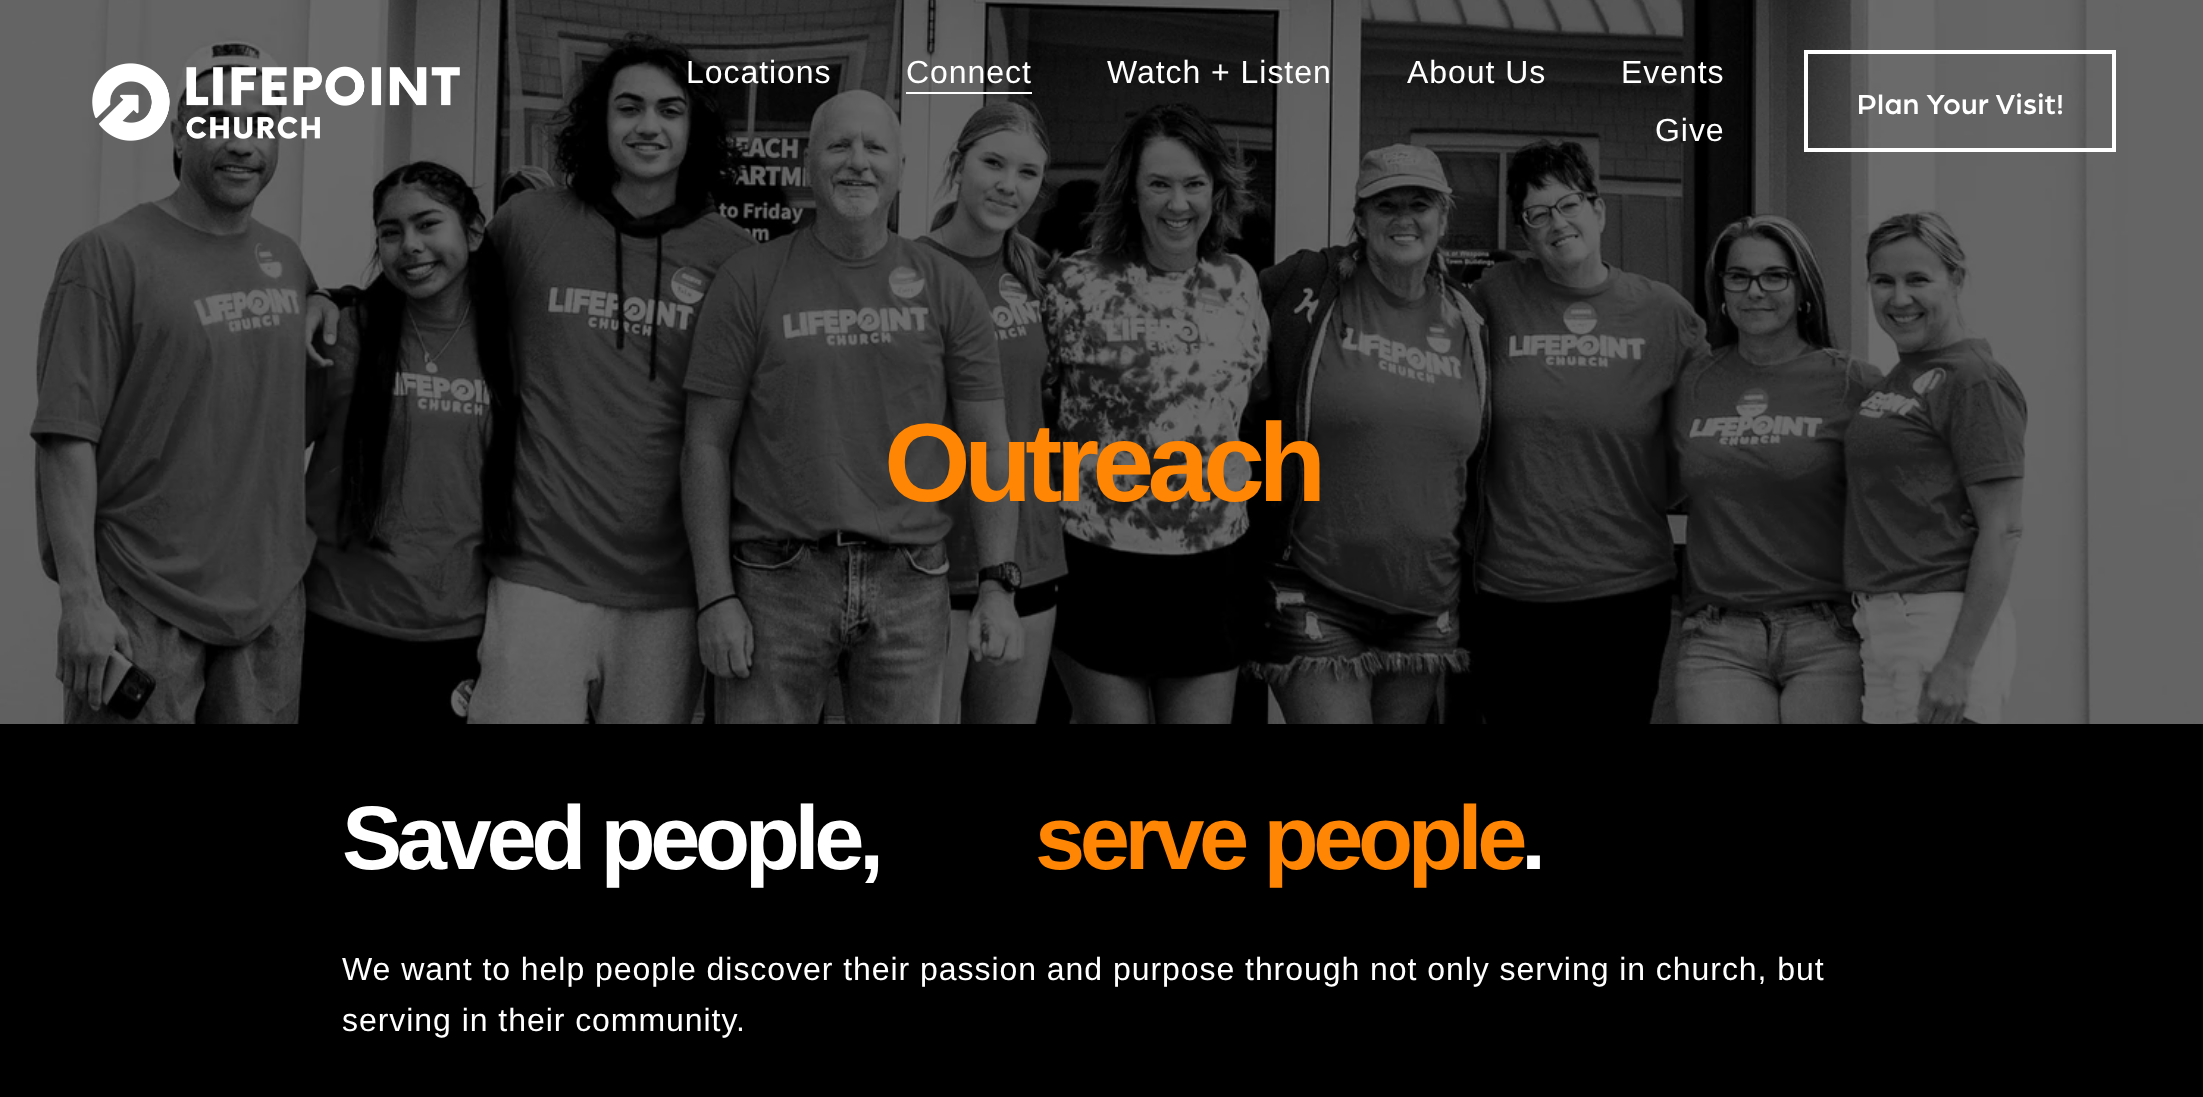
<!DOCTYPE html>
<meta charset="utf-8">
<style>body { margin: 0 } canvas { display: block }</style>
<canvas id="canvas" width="2203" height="1097"></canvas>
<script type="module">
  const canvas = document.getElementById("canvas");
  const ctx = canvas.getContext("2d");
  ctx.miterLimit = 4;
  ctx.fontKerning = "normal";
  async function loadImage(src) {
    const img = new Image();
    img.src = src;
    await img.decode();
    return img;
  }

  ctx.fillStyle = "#ffffff";
  ctx.fillRect(0, 0, 2203, 1097);
  ctx.drawImage(await loadImage("img2.png"), 0, 0, 2203, 724);
  ctx.drawImage(await loadImage("img1.png"), 92, 63, 368, 78);
  ctx.letterSpacing = "0.95px";
  ctx.font = "32px Liberation Sans";
  ctx.fillText("Locations", 686, 83);
  ctx.fillRect(906, 92, 126, 2);
  ctx.fillText("Connect", 906, 83);
  ctx.fillText("Watch + Listen", 1107, 83);
  ctx.fillText("About Us", 1407, 83);
  ctx.fillText("Events", 1621, 83);
  ctx.fillText("Give", 1655, 141);
  ctx.strokeStyle = "#ffffff";
  ctx.lineWidth = 4;
  ctx.strokeRect(1806, 52, 308, 98);
  ctx.letterSpacing = "0.6px";
  ctx.font = "500 29.5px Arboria";
  ctx.fillText("Plan Your Visit!", 1857, 114);
  ctx.letterSpacing = "-6.75px";
  ctx.font = "bold 111.5px Liberation Sans";
  ctx.fillStyle = "#ff8504";
  ctx.fillText("Outreach", 884, 501);
  ctx.fillStyle = "#000000";
  ctx.fillRect(0, 724, 2203, 373);
  ctx.letterSpacing = "-5.4px";
  ctx.font = "bold 90.25px Liberation Sans";
  ctx.fillStyle = "#ffffff";
  ctx.fillText("Saved people,", 342, 869);
  ctx.fillStyle = "#ff8504";
  ctx.fillText("serve people", 1035, 869);
  ctx.fillStyle = "#ffffff";
  ctx.fillText(".", 1521, 869);
  ctx.letterSpacing = "0.95px";
  ctx.font = "32px Liberation Sans";
  ctx.fillText("We want to help people discover their passion and purpose through not only serving in church, but", 342, 980);
  ctx.fillText("serving in their community.", 342, 1031);
</script>
